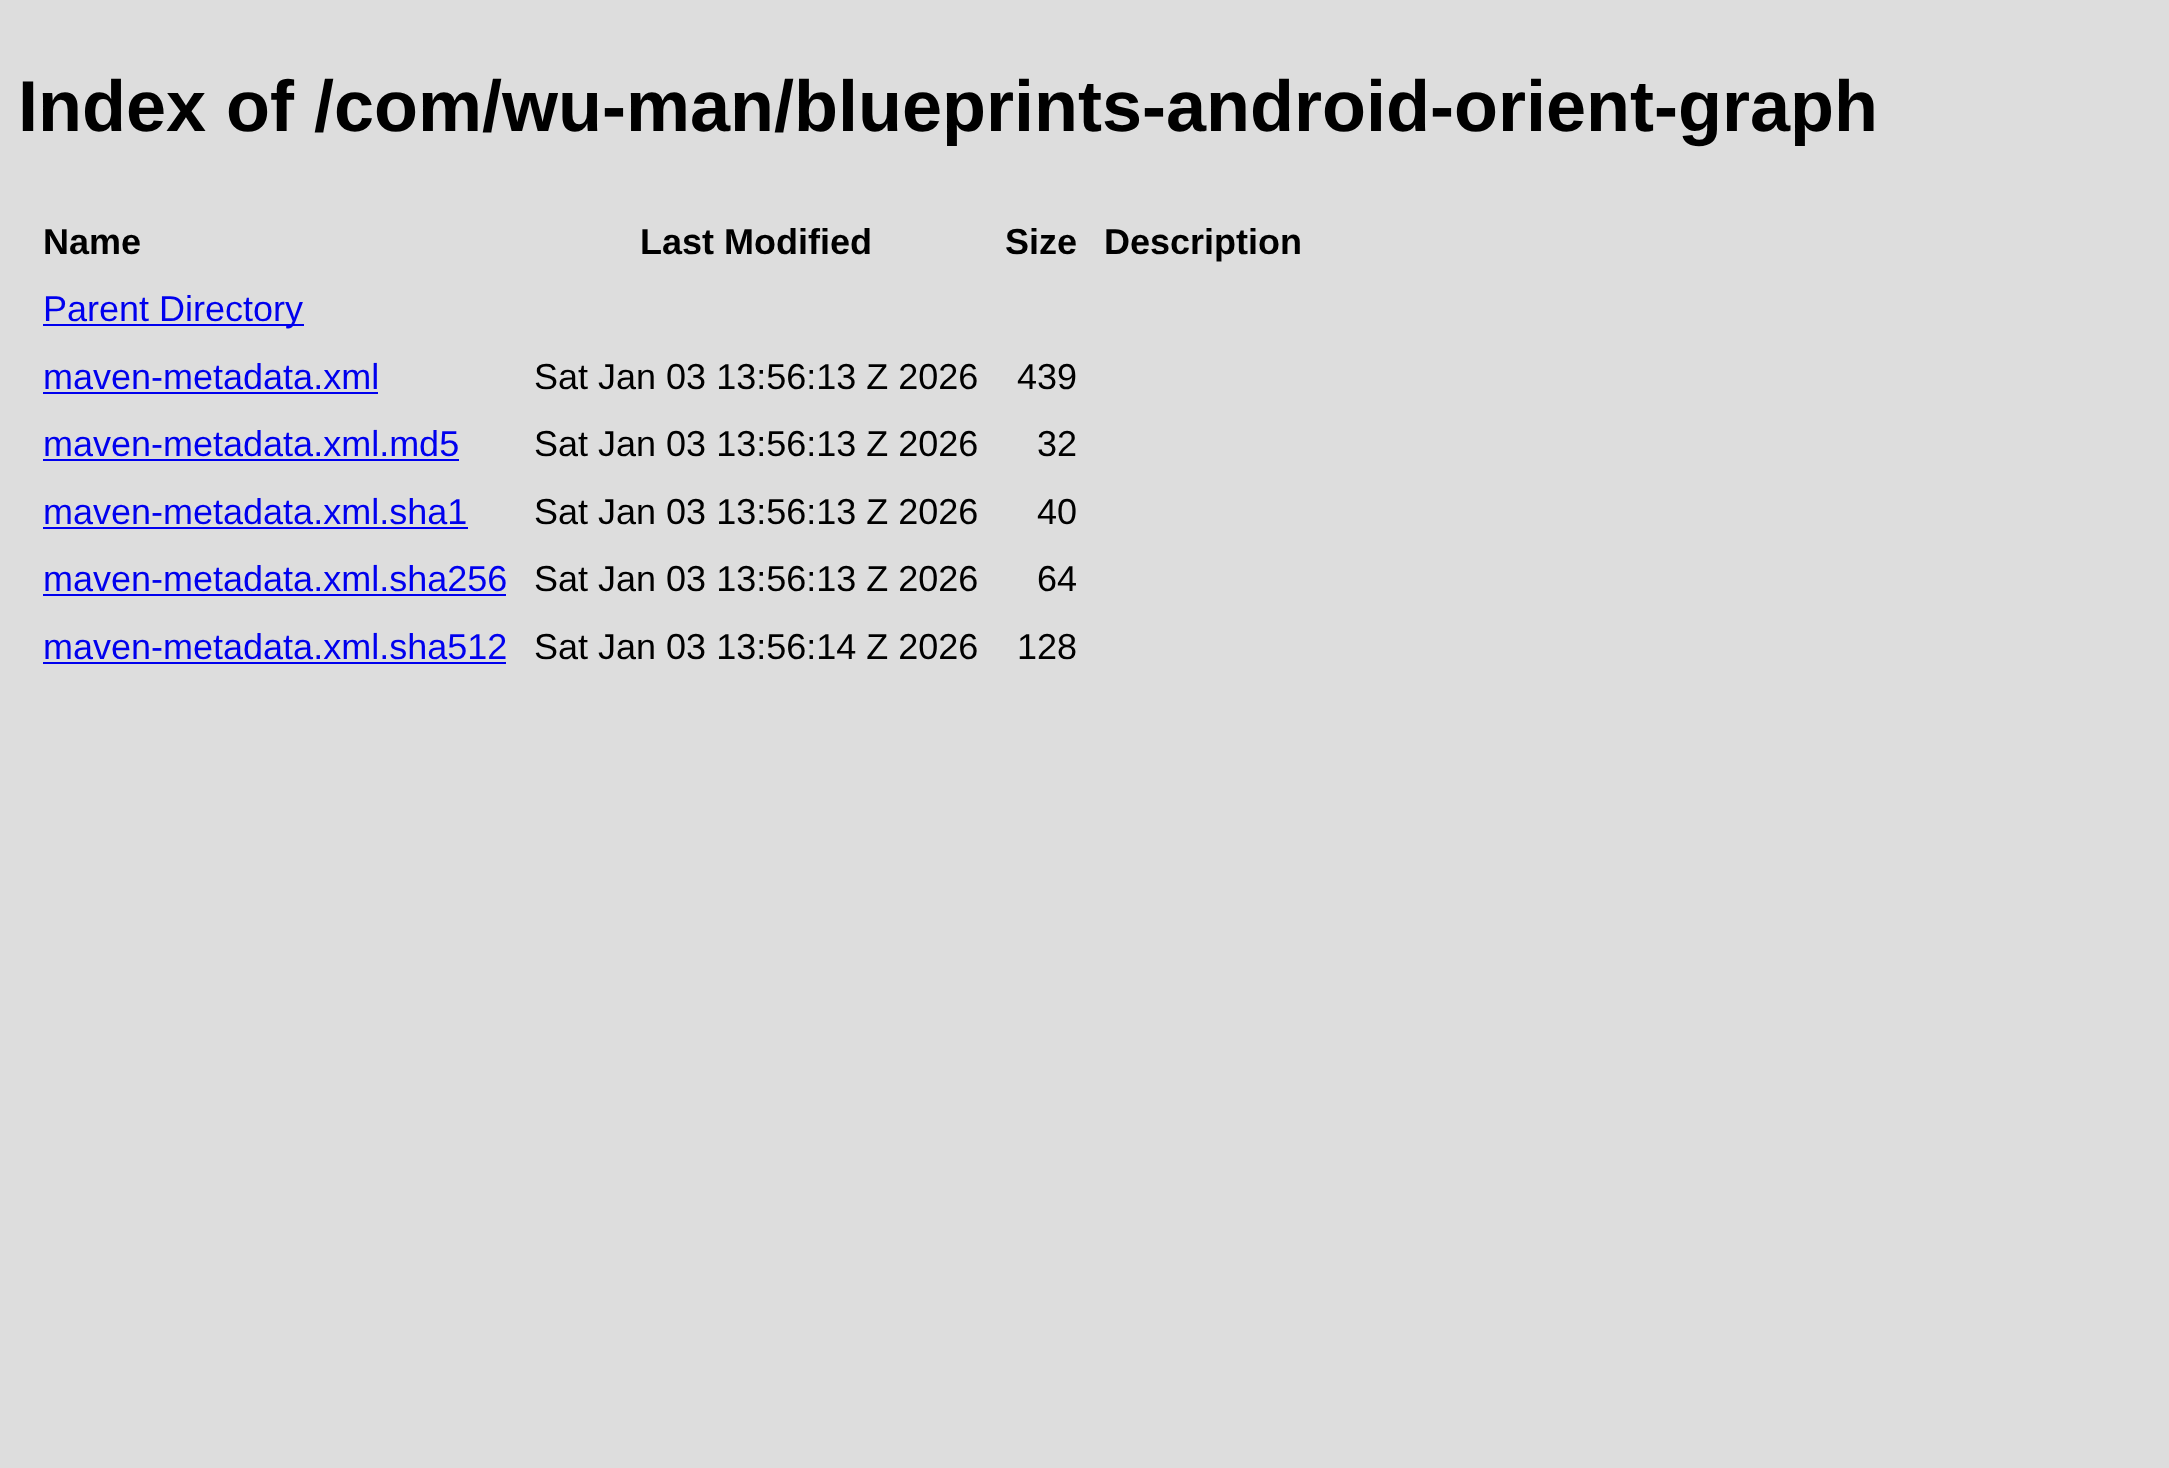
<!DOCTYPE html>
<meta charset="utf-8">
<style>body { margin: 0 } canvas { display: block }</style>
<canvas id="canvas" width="2169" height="1468"></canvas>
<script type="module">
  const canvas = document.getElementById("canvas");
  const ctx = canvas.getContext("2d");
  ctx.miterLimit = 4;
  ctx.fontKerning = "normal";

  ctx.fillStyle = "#dddddd";
  ctx.fillRect(0, 0, 2169, 1468);
  ctx.font = "bold 72px Liberation Sans";
  ctx.fillStyle = "#000000";
  ctx.fillText("Index of /com/wu-man/blueprints-android-orient-graph", 18, 131);
  ctx.font = "bold 36px Liberation Sans";
  ctx.fillText("Name", 43, 254);
  ctx.fillText("Last Modified", 640, 254);
  ctx.fillText("Size", 1005, 254);
  ctx.fillText("Description", 1104, 254);
  ctx.fillStyle = "#0000ee";
  ctx.fillRect(43, 324, 261, 2);
  ctx.font = "36px Liberation Sans";
  ctx.fillText("Parent Directory", 43, 321);
  ctx.fillText("maven-metadata.xml", 43, 389);
  ctx.fillRect(43, 392, 335, 2);
  ctx.fillStyle = "#000000";
  ctx.fillText("Sat Jan 03 13:56:13 Z 2026", 534, 389);
  ctx.fillText("439", 1017, 389);
  ctx.fillStyle = "#0000ee";
  ctx.fillText("maven-metadata.xml.md5", 43, 456);
  ctx.fillRect(43, 459, 416, 2);
  ctx.fillStyle = "#000000";
  ctx.fillText("Sat Jan 03 13:56:13 Z 2026", 534, 456);
  ctx.fillText("32", 1037, 456);
  ctx.fillStyle = "#0000ee";
  ctx.fillText("maven-metadata.xml.sha1", 43, 524);
  ctx.fillRect(43, 527, 425, 2);
  ctx.fillStyle = "#000000";
  ctx.fillText("Sat Jan 03 13:56:13 Z 2026", 534, 524);
  ctx.fillText("40", 1037, 524);
  ctx.fillStyle = "#0000ee";
  ctx.fillText("maven-metadata.xml.sha256", 43, 591);
  ctx.fillRect(43, 594, 463, 2);
  ctx.fillStyle = "#000000";
  ctx.fillText("Sat Jan 03 13:56:13 Z 2026", 534, 591);
  ctx.fillText("64", 1037, 591);
  ctx.fillStyle = "#0000ee";
  ctx.fillText("maven-metadata.xml.sha512", 43, 659);
  ctx.fillRect(43, 662, 463, 2);
  ctx.fillStyle = "#000000";
  ctx.fillText("Sat Jan 03 13:56:14 Z 2026", 534, 659);
  ctx.fillText("128", 1017, 659);
</script>
